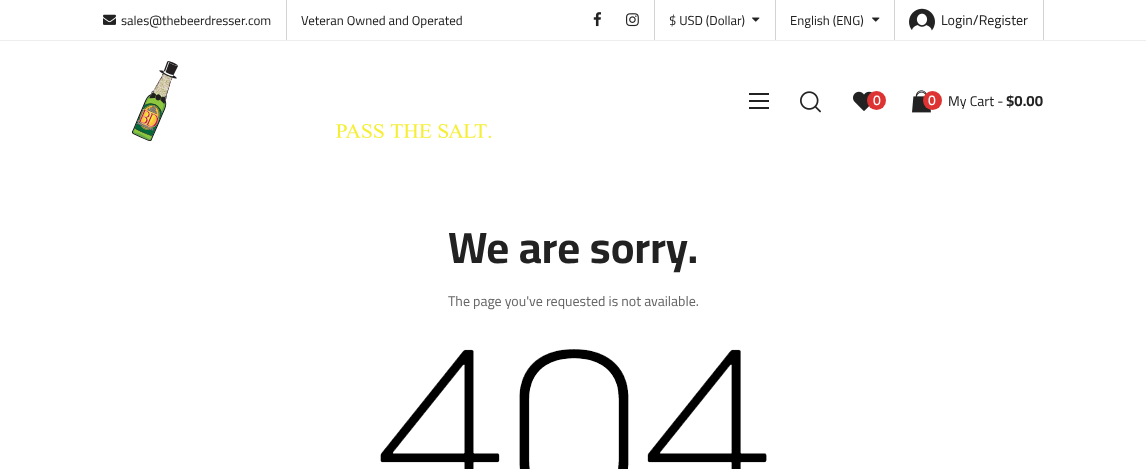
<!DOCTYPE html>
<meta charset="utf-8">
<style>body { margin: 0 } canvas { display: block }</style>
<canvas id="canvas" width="1146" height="469"></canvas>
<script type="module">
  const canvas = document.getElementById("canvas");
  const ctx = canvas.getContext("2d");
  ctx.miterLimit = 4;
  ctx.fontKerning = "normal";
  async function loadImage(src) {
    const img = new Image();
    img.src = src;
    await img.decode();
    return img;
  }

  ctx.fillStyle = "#ffffff";
  ctx.fillRect(0, 0, 1146, 469);
  ctx.fillStyle = "#eeeeee";
  ctx.fillRect(0, 40, 1146, 1);
  ctx.drawImage(await loadImage("img1.png"), 103, 14, 13, 11);
  ctx.font = "13px Cairo";
  ctx.fillStyle = "#222222";
  ctx.fillText("sales@thebeerdresser.com", 121, 25);
  ctx.fillStyle = "#d3d3d3";
  ctx.fillRect(286, 0, 1, 40);
  ctx.fillStyle = "#222222";
  ctx.fillText("Veteran Owned and Operated", 301, 25);
  ctx.drawImage(await loadImage("img2.png"), 593, 12, 9, 15);
  ctx.drawImage(await loadImage("img3.png"), 626, 13, 13, 14);
  ctx.fillStyle = "#d3d3d3";
  ctx.fillRect(654, 0, 1, 40);
  ctx.fillStyle = "#222222";
  ctx.fillText("$ USD (Dollar)", 669, 25);
  ctx.drawImage(await loadImage("img4.png"), 752, 17, 8, 5);
  ctx.fillStyle = "#d3d3d3";
  ctx.fillRect(775, 0, 1, 40);
  ctx.fillStyle = "#222222";
  ctx.fillText("English (ENG)", 790, 25);
  ctx.drawImage(await loadImage("img4.png"), 872, 17, 8, 5);
  ctx.fillStyle = "#d3d3d3";
  ctx.fillRect(894, 0, 1, 40);
  ctx.drawImage(await loadImage("img5.png"), 909, 8, 26, 23);
  ctx.font = "14px Cairo";
  ctx.fillStyle = "#222222";
  ctx.fillText("Login/Register", 941, 25);
  ctx.fillStyle = "#d3d3d3";
  ctx.fillRect(1043, 0, 1, 40);
  ctx.drawImage(await loadImage("img6.png"), 132, 61, 359, 80);
  ctx.fillStyle = "#222222";
  ctx.fillRect(749, 93, 20, 2);
  ctx.fillRect(749, 100, 20, 2);
  ctx.fillRect(749, 107, 20, 2);
  ctx.drawImage(await loadImage("img7.png"), 800, 91, 21, 22);
  ctx.drawImage(await loadImage("img8.png"), 853, 91, 20, 20);
  ctx.fillStyle = "#dd3333";
  ctx.beginPath();
  ctx.arc(876.5, 100.5, 9.5, 0, Math.PI * 2);
  ctx.fill();
  ctx.font = "600 14px Cairo";
  ctx.fillStyle = "#ffffff";
  ctx.fillText("0", 873, 105);
  ctx.drawImage(await loadImage("img9.png"), 912, 90, 19, 23);
  ctx.fillStyle = "#dd3333";
  ctx.beginPath();
  ctx.arc(932.5, 100.5, 9.5, 0, Math.PI * 2);
  ctx.fill();
  ctx.fillStyle = "#ffffff";
  ctx.fillText("0", 928, 105);
  ctx.font = "14px Cairo";
  ctx.fillStyle = "#222222";
  ctx.fillText("My Cart -", 948, 106);
  ctx.font = "bold 15px Cairo";
  ctx.fillText("$0.00", 1006, 106);
  ctx.font = "bold 44px Cairo";
  ctx.fillText("We are sorry.", 448, 263);
  ctx.font = "14px Cairo";
  ctx.fillStyle = "#666666";
  ctx.fillText("The page you've requested is not available.", 448, 306);
  ctx.drawImage(await loadImage("img10.png"), 380, 349, 387, 120);
</script>
